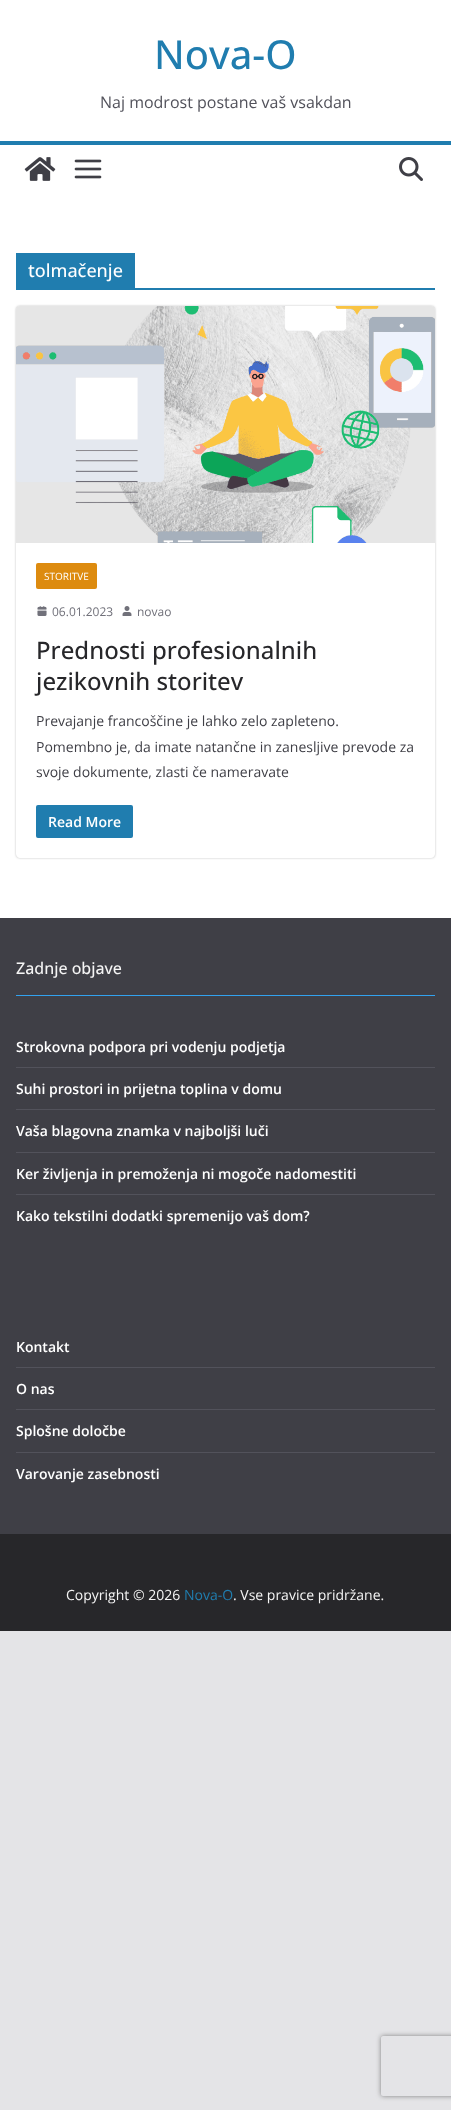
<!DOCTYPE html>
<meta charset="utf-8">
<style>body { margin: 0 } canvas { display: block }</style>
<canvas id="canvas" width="451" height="2110"></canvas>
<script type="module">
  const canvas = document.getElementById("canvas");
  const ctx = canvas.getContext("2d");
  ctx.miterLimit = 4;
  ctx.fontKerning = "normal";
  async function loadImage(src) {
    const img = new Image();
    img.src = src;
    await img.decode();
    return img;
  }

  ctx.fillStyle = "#e4e4e7";
  ctx.fillRect(0, 0, 451, 2110);
  ctx.fillStyle = "#ffffff";
  ctx.fillRect(0, 0, 451, 918);
  ctx.font = "500 40px Open Sans";
  ctx.fillStyle = "#207daf";
  ctx.fillText("Nova-O", 154, 69);
  ctx.font = "16px Open Sans";
  ctx.fillStyle = "#52525b";
  ctx.fillText("Naj modrost postane vaš vsakdan", 100, 108);
  ctx.fillStyle = "#207daf";
  ctx.fillRect(0, 141, 451, 4);
  ctx.drawImage(await loadImage("img1.png"), 24, 157, 32, 24);
  ctx.drawImage(await loadImage("img2.png"), 74, 159, 28, 20);
  ctx.drawImage(await loadImage("img3.png"), 399, 157, 24, 24);
  ctx.fillRect(16, 288, 419, 2);
  ctx.fillRect(16, 253, 119, 35);
  ctx.font = "500 18px Open Sans";
  ctx.fillStyle = "#ffffff";
  ctx.fillText("tolmačenje", 28, 277);
  ctx.save();
  ctx.beginPath();
  ctx.moveTo(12, 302);
  ctx.lineTo(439, 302);
  ctx.lineTo(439, 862);
  ctx.lineTo(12, 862);
  ctx.closePath();
  ctx.moveTo(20, 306);
  ctx.lineTo(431, 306);
  ctx.bezierCurveTo(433, 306, 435, 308, 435, 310);
  ctx.lineTo(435, 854);
  ctx.bezierCurveTo(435, 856, 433, 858, 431, 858);
  ctx.lineTo(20, 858);
  ctx.bezierCurveTo(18, 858, 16, 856, 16, 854);
  ctx.lineTo(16, 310);
  ctx.bezierCurveTo(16, 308, 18, 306, 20, 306);
  ctx.closePath();
  ctx.clip("evenodd");
  ctx.fillStyle = "rgba(0, 0, 0, 0.24)";
  ctx.filter = "blur(1px)";
  ctx.beginPath();
  ctx.roundRect(16, 306, 419, 552, 4);
  ctx.fill();
  ctx.filter = "none";
  ctx.restore();
  ctx.drawImage(await loadImage("img4.png"), 16, 306, 419, 237);
  ctx.fillStyle = "#dd8b0f";
  ctx.beginPath();
  ctx.roundRect(36, 563, 61, 26, 2);
  ctx.fill();
  ctx.font = "10px Open Sans";
  ctx.fillStyle = "#ffffff";
  ctx.fillText("STORITVE", 44, 580);
  ctx.drawImage(await loadImage("img5.png"), 37, 606, 10, 10);
  ctx.font = "12px Open Sans";
  ctx.fillStyle = "#71717a";
  ctx.fillText("06.01.2023", 52, 616);
  ctx.drawImage(await loadImage("img6.png"), 122, 606, 10, 10);
  ctx.fillText("novao", 137, 616);
  ctx.font = "500 24px Open Sans";
  ctx.fillStyle = "#27272a";
  ctx.fillText("Prednosti profesionalnih", 36, 659);
  ctx.fillText("jezikovnih storitev", 36, 690);
  ctx.font = "14px Open Sans";
  ctx.fillStyle = "#3f3f46";
  ctx.fillText("Prevajanje francoščine je lahko zelo zapleteno.", 36, 726);
  ctx.fillText("Pomembno je, da imate natančne in zanesljive prevode za", 36, 752);
  ctx.fillText("svoje dokumente, zlasti če nameravate", 36, 777);
  ctx.fillStyle = "#207daf";
  ctx.beginPath();
  ctx.roundRect(36, 805, 97, 33, 2);
  ctx.fill();
  ctx.font = "600 14px Open Sans";
  ctx.fillStyle = "#ffffff";
  ctx.fillText("Read More", 48, 827);
  ctx.fillStyle = "#3f3f46";
  ctx.fillRect(0, 918, 451, 616);
  ctx.font = "500 16px Open Sans";
  ctx.fillStyle = "#f5f5f5";
  ctx.fillText("Zadnje objave", 16, 974);
  ctx.fillStyle = "#32a2ef";
  ctx.fillRect(16, 995, 419, 1);
  ctx.fillStyle = "#52525b";
  ctx.fillRect(16, 1067, 419, 1);
  ctx.font = "600 14px Open Sans";
  ctx.fillStyle = "#ffffff";
  ctx.fillText("Strokovna podpora pri vodenju podjetja", 16, 1052);
  ctx.fillStyle = "#52525b";
  ctx.fillRect(16, 1109, 419, 1);
  ctx.fillStyle = "#ffffff";
  ctx.fillText("Suhi prostori in prijetna toplina v domu", 16, 1094);
  ctx.fillStyle = "#52525b";
  ctx.fillRect(16, 1152, 419, 1);
  ctx.fillStyle = "#ffffff";
  ctx.fillText("Vaša blagovna znamka v najboljši luči", 16, 1136);
  ctx.fillStyle = "#52525b";
  ctx.fillRect(16, 1194, 419, 1);
  ctx.fillStyle = "#ffffff";
  ctx.fillText("Ker življenja in premoženja ni mogoče nadomestiti", 16, 1179);
  ctx.fillText("Kako tekstilni dodatki spremenijo vaš dom?", 16, 1221);
  ctx.fillStyle = "#52525b";
  ctx.fillRect(16, 1367, 419, 1);
  ctx.fillStyle = "#ffffff";
  ctx.fillText("Kontakt", 16, 1352);
  ctx.fillStyle = "#52525b";
  ctx.fillRect(16, 1409, 419, 1);
  ctx.fillStyle = "#ffffff";
  ctx.fillText("O nas", 16, 1394);
  ctx.fillStyle = "#52525b";
  ctx.fillRect(16, 1452, 419, 1);
  ctx.fillStyle = "#ffffff";
  ctx.fillText("Splošne določbe", 16, 1436);
  ctx.fillText("Varovanje zasebnosti", 16, 1479);
  ctx.fillStyle = "#27272a";
  ctx.fillRect(0, 1534, 451, 97);
  ctx.font = "14px Open Sans";
  ctx.fillStyle = "#f5f5f5";
  ctx.fillText("Copyright © 2026", 66, 1600);
  ctx.fillStyle = "#207daf";
  ctx.fillText("Nova-O", 184, 1600);
  ctx.fillStyle = "#f5f5f5";
  ctx.fillText(". Vse pravice pridržane.", 233, 1600);
  ctx.save();
  ctx.beginPath();
  ctx.moveTo(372, 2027);
  ctx.lineTo(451, 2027);
  ctx.lineTo(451, 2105);
  ctx.lineTo(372, 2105);
  ctx.closePath();
  ctx.moveTo(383, 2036);
  ctx.lineTo(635, 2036);
  ctx.bezierCurveTo(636, 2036, 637, 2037, 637, 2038);
  ctx.lineTo(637, 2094);
  ctx.bezierCurveTo(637, 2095, 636, 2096, 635, 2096);
  ctx.lineTo(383, 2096);
  ctx.bezierCurveTo(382, 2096, 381, 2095, 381, 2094);
  ctx.lineTo(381, 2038);
  ctx.bezierCurveTo(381, 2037, 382, 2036, 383, 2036);
  ctx.closePath();
  ctx.clip("evenodd");
  ctx.fillStyle = "#808080";
  ctx.filter = "blur(2.5px)";
  ctx.beginPath();
  ctx.roundRect(381, 2036, 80, 60, 2);
  ctx.fill();
  ctx.filter = "none";
  ctx.restore();
</script>
